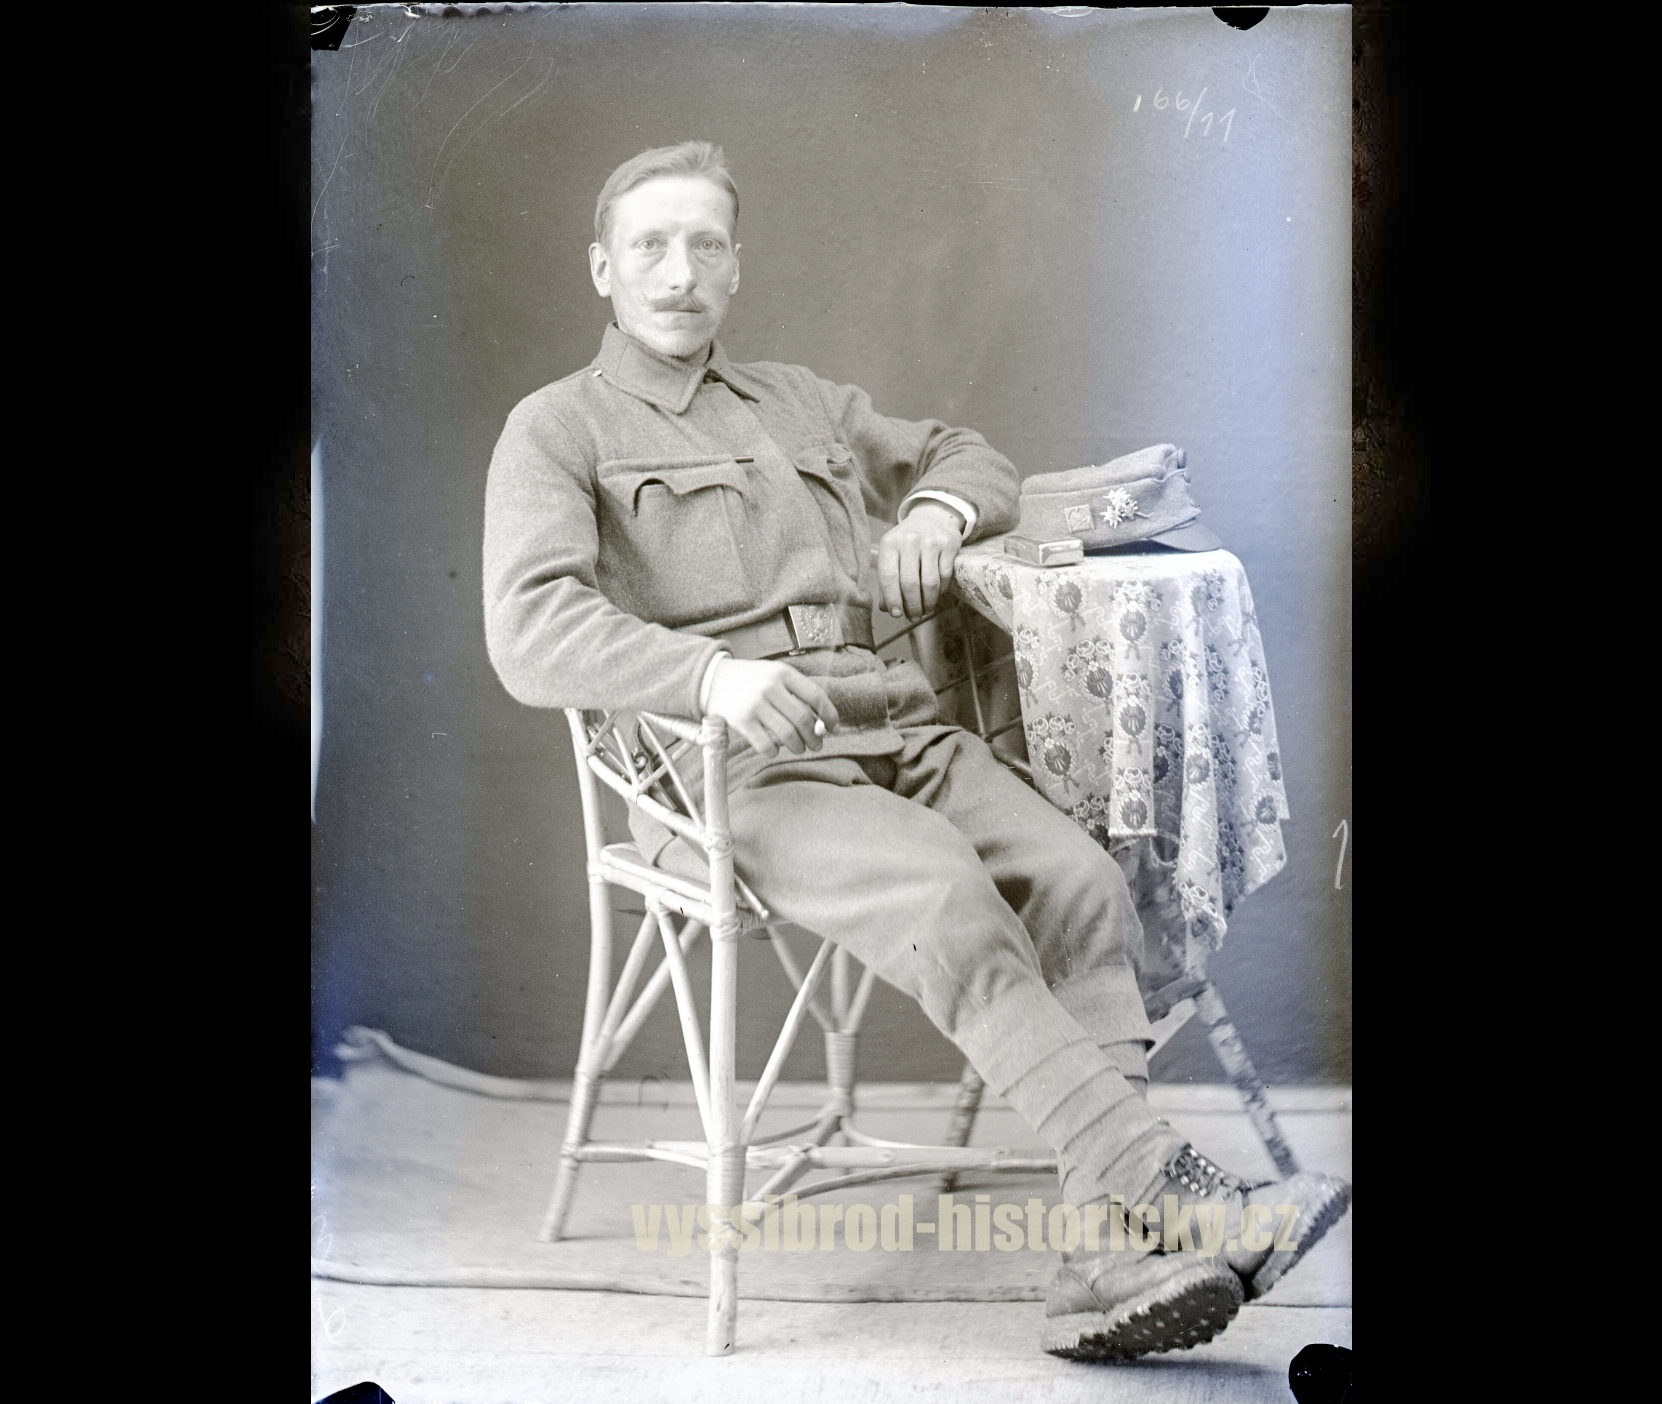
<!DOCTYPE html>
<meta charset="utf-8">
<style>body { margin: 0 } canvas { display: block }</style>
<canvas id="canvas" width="1662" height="1404"></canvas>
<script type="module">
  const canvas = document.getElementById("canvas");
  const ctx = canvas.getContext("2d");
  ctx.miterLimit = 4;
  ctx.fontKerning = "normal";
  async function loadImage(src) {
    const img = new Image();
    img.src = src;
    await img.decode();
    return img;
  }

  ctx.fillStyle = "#000000";
  ctx.fillRect(0, 0, 1662, 1404);
  ctx.drawImage(await loadImage("img1.png"), 252, 0, 1179, 779);
  ctx.drawImage(await loadImage("img2.png"), 311, 0, 1041, 1404);
</script>
